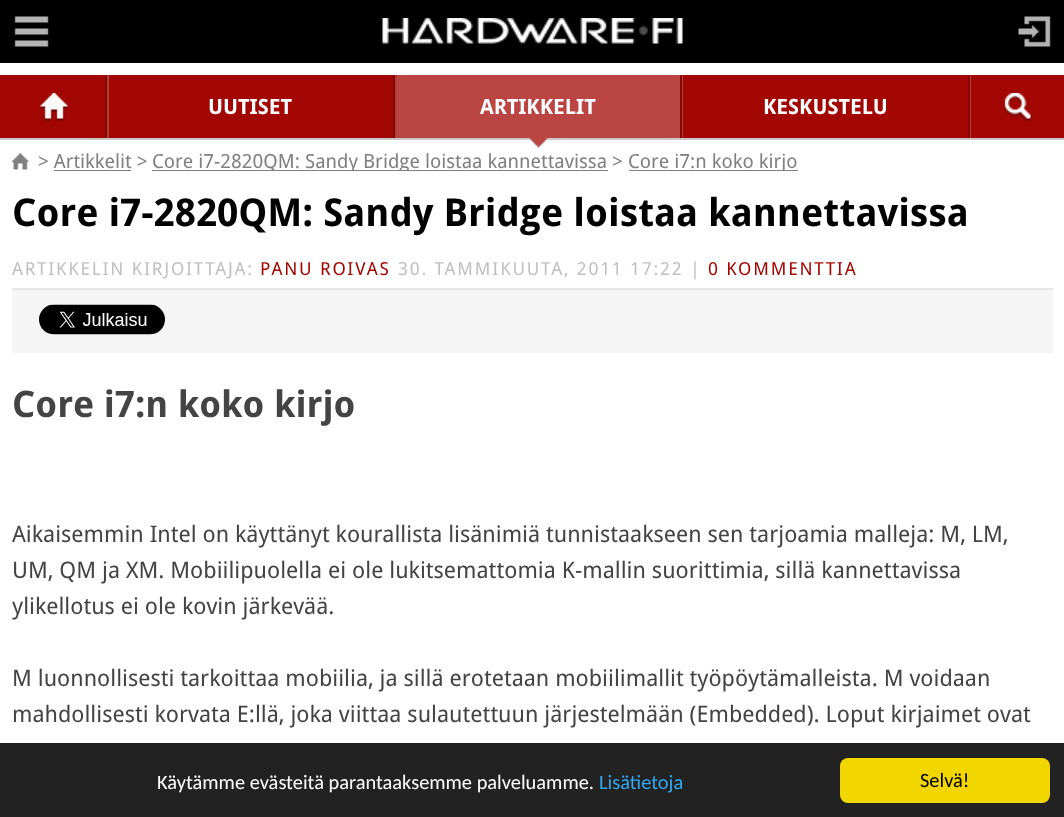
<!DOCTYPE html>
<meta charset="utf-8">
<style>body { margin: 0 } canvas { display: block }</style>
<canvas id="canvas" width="1064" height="817"></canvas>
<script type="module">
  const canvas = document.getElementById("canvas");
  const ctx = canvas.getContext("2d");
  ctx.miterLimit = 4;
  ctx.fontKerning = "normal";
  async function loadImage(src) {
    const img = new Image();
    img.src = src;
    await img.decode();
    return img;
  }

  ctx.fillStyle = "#ffffff";
  ctx.fillRect(0, 0, 1064, 817);
  ctx.fillStyle = "#000000";
  ctx.fillRect(0, 0, 1064, 63);
  ctx.drawImage(await loadImage("img1.png"), 14, 16, 35, 31);
  ctx.drawImage(await loadImage("img2.png"), 1018, 16, 33, 31);
  ctx.drawImage(await loadImage("img3.png"), 382, 18, 301, 26);
  ctx.fillStyle = "#a30703";
  ctx.fillRect(0, 75, 1064, 63);
  ctx.fillStyle = "#c9c6c6";
  ctx.fillRect(0, 138, 1064, 2);
  ctx.drawImage(await loadImage("img4.png"), 39, 93, 30, 29);
  ctx.fillStyle = "#800704";
  ctx.fillRect(105, 75, 2, 63);
  ctx.fillRect(393, 75, 2, 63);
  ctx.fillStyle = "#b63c39";
  ctx.fillRect(107, 75, 2, 63);
  ctx.font = "bold 21px Droid Sans";
  ctx.fillStyle = "#ffffff";
  ctx.fillText("UUTISET", 208, 114);
  ctx.fillStyle = "#ba4542";
  ctx.fillRect(397, 75, 283, 63);
  ctx.fillStyle = "#800704";
  ctx.fillRect(680, 75, 2, 63);
  ctx.fillStyle = "#b63c39";
  ctx.fillRect(395, 75, 2, 63);
  ctx.fillStyle = "#ffffff";
  ctx.fillText("ARTIKKELIT", 480, 114);
  ctx.fillStyle = "#c9c6c6";
  ctx.beginPath();
  ctx.moveTo(529.5, 139.5);
  ctx.lineTo(547.5, 139.5);
  ctx.lineTo(538.5, 148.5);
  ctx.closePath();
  ctx.fill();
  ctx.fillStyle = "#ba4542";
  ctx.beginPath();
  ctx.moveTo(529.5, 138);
  ctx.lineTo(547.5, 138);
  ctx.lineTo(538.5, 147);
  ctx.closePath();
  ctx.fill();
  ctx.fillStyle = "#800704";
  ctx.fillRect(968, 75, 2, 63);
  ctx.fillStyle = "#b63c39";
  ctx.fillRect(682, 75, 1, 63);
  ctx.fillStyle = "#ffffff";
  ctx.fillText("KESKUSTELU", 763, 114);
  ctx.drawImage(await loadImage("img5.png"), 1003, 93, 29, 29);
  ctx.fillStyle = "#b63c39";
  ctx.fillRect(970, 75, 1, 63);
  ctx.drawImage(await loadImage("img6.png"), 12, 153, 17, 17);
  ctx.font = "19.5px Droid Sans";
  ctx.fillStyle = "#808080";
  ctx.fillText("> Artikkelit >", 38, 168);
  ctx.fillRect(152, 170, 456, 1);
  ctx.save();
  ctx.beginPath();
  ctx.rect(12, 152, 1041, 19);
  ctx.clip();
  ctx.fillText("Core i7-2820QM: Sandy Bridge loistaa kannettavissa", 152, 168);
  ctx.restore();
  ctx.fillText(">", 612, 168);
  ctx.fillRect(629, 170, 169, 1);
  ctx.save();
  ctx.beginPath();
  ctx.rect(12, 152, 1041, 19);
  ctx.clip();
  ctx.fillText("Core i7:n koko kirjo", 628, 168);
  ctx.restore();
  ctx.fillRect(54, 170, 77, 1);
  ctx.font = "bold 38.4px Droid Sans";
  ctx.fillStyle = "#000000";
  ctx.fillText("Core i7-2820QM: Sandy Bridge loistaa kannettavissa", 12, 226);
  ctx.fillStyle = "#e6e6e6";
  ctx.fillRect(12, 288, 1041, 2);
  ctx.letterSpacing = "1.8px";
  ctx.font = "18px Droid Sans";
  ctx.fillStyle = "#c0c0c0";
  ctx.fillText("ARTIKKELIN KIRJOITTAJA:", 12, 275);
  ctx.fillStyle = "#a30703";
  ctx.fillText("PANU ROIVAS", 260, 275);
  ctx.fillStyle = "#c0c0c0";
  ctx.fillText("30. TAMMIKUUTA, 2011 17:22 |", 398, 275);
  ctx.fillStyle = "#a30703";
  ctx.fillText("0 KOMMENTTIA", 708, 275);
  ctx.fillStyle = "#f5f5f5";
  ctx.fillRect(12, 290, 1041, 63);
  ctx.drawImage(await loadImage("img7.png"), 39, 304, 126, 31);
  ctx.letterSpacing = "0px";
  ctx.font = "bold 36.5px Droid Sans";
  ctx.fillStyle = "#444444";
  ctx.fillText("Core i7:n koko kirjo", 12, 417);
  ctx.font = "22.8px Droid Sans";
  ctx.fillText("Aikaisemmin Intel on käyttänyt kourallista lisänimiä tunnistaakseen sen tarjoamia malleja: M, LM,", 12, 542);
  ctx.fillText("UM, QM ja XM. Mobiilipuolella ei ole lukitsemattomia K-mallin suorittimia, sillä kannettavissa", 12, 578);
  ctx.fillText("ylikellotus ei ole kovin järkevää.", 12, 614);
  ctx.fillText("M luonnollisesti tarkoittaa mobiilia, ja sillä erotetaan mobiilimallit työpöytämalleista. M voidaan", 12, 686);
  ctx.fillText("mahdollisesti korvata E:llä, joka viittaa sulautettuun järjestelmään (Embedded). Loput kirjaimet ovat", 12, 722);
  ctx.fillStyle = "#222222";
  ctx.fillRect(0, 743, 1064, 74);
  ctx.font = "20.4px Carlito";
  ctx.fillStyle = "#ffffff";
  ctx.fillText("Käytämme evästeitä parantaaksemme palveluamme.", 157, 789);
  ctx.fillStyle = "#31a8f0";
  ctx.fillText("Lisätietoja", 599, 789);
  ctx.fillStyle = "#f1d600";
  ctx.beginPath();
  ctx.roundRect(840, 758, 210, 45, 8);
  ctx.fill();
  ctx.fillStyle = "#000000";
  ctx.fillText("Selvä!", 920, 787);
</script>
